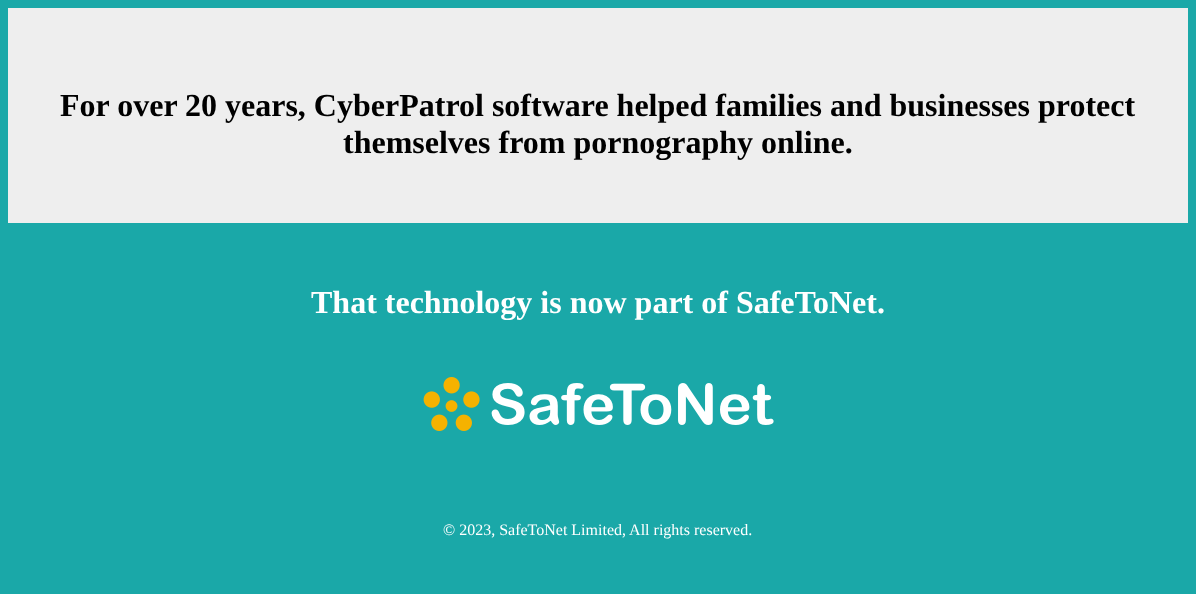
<!DOCTYPE html>
<meta charset="utf-8">
<style>body { margin: 0 } canvas { display: block }</style>
<canvas id="canvas" width="1196" height="594"></canvas>
<script type="module">
  const canvas = document.getElementById("canvas");
  const ctx = canvas.getContext("2d");
  ctx.miterLimit = 4;
  ctx.fontKerning = "normal";
  async function loadImage(src) {
    const img = new Image();
    img.src = src;
    await img.decode();
    return img;
  }

  ctx.fillStyle = "#1aa8a8";
  ctx.fillRect(0, 0, 1196, 594);
  ctx.fillStyle = "#eeeeee";
  ctx.fillRect(8, 8, 1180, 215);
  ctx.font = "bold 32px Liberation Serif";
  ctx.fillStyle = "#000000";
  ctx.fillText("For over 20 years, CyberPatrol software helped families and businesses protect", 60, 116);
  ctx.fillText("themselves from pornography online.", 343, 153);
  ctx.fillStyle = "#ffffff";
  ctx.fillText("That technology is now part of SafeToNet.", 311, 313);
  ctx.drawImage(await loadImage("img1.png"), 423, 377, 351, 54);
  ctx.font = "16px Liberation Serif";
  ctx.fillText("© 2023, SafeToNet Limited, All rights reserved.", 443, 535);
</script>
